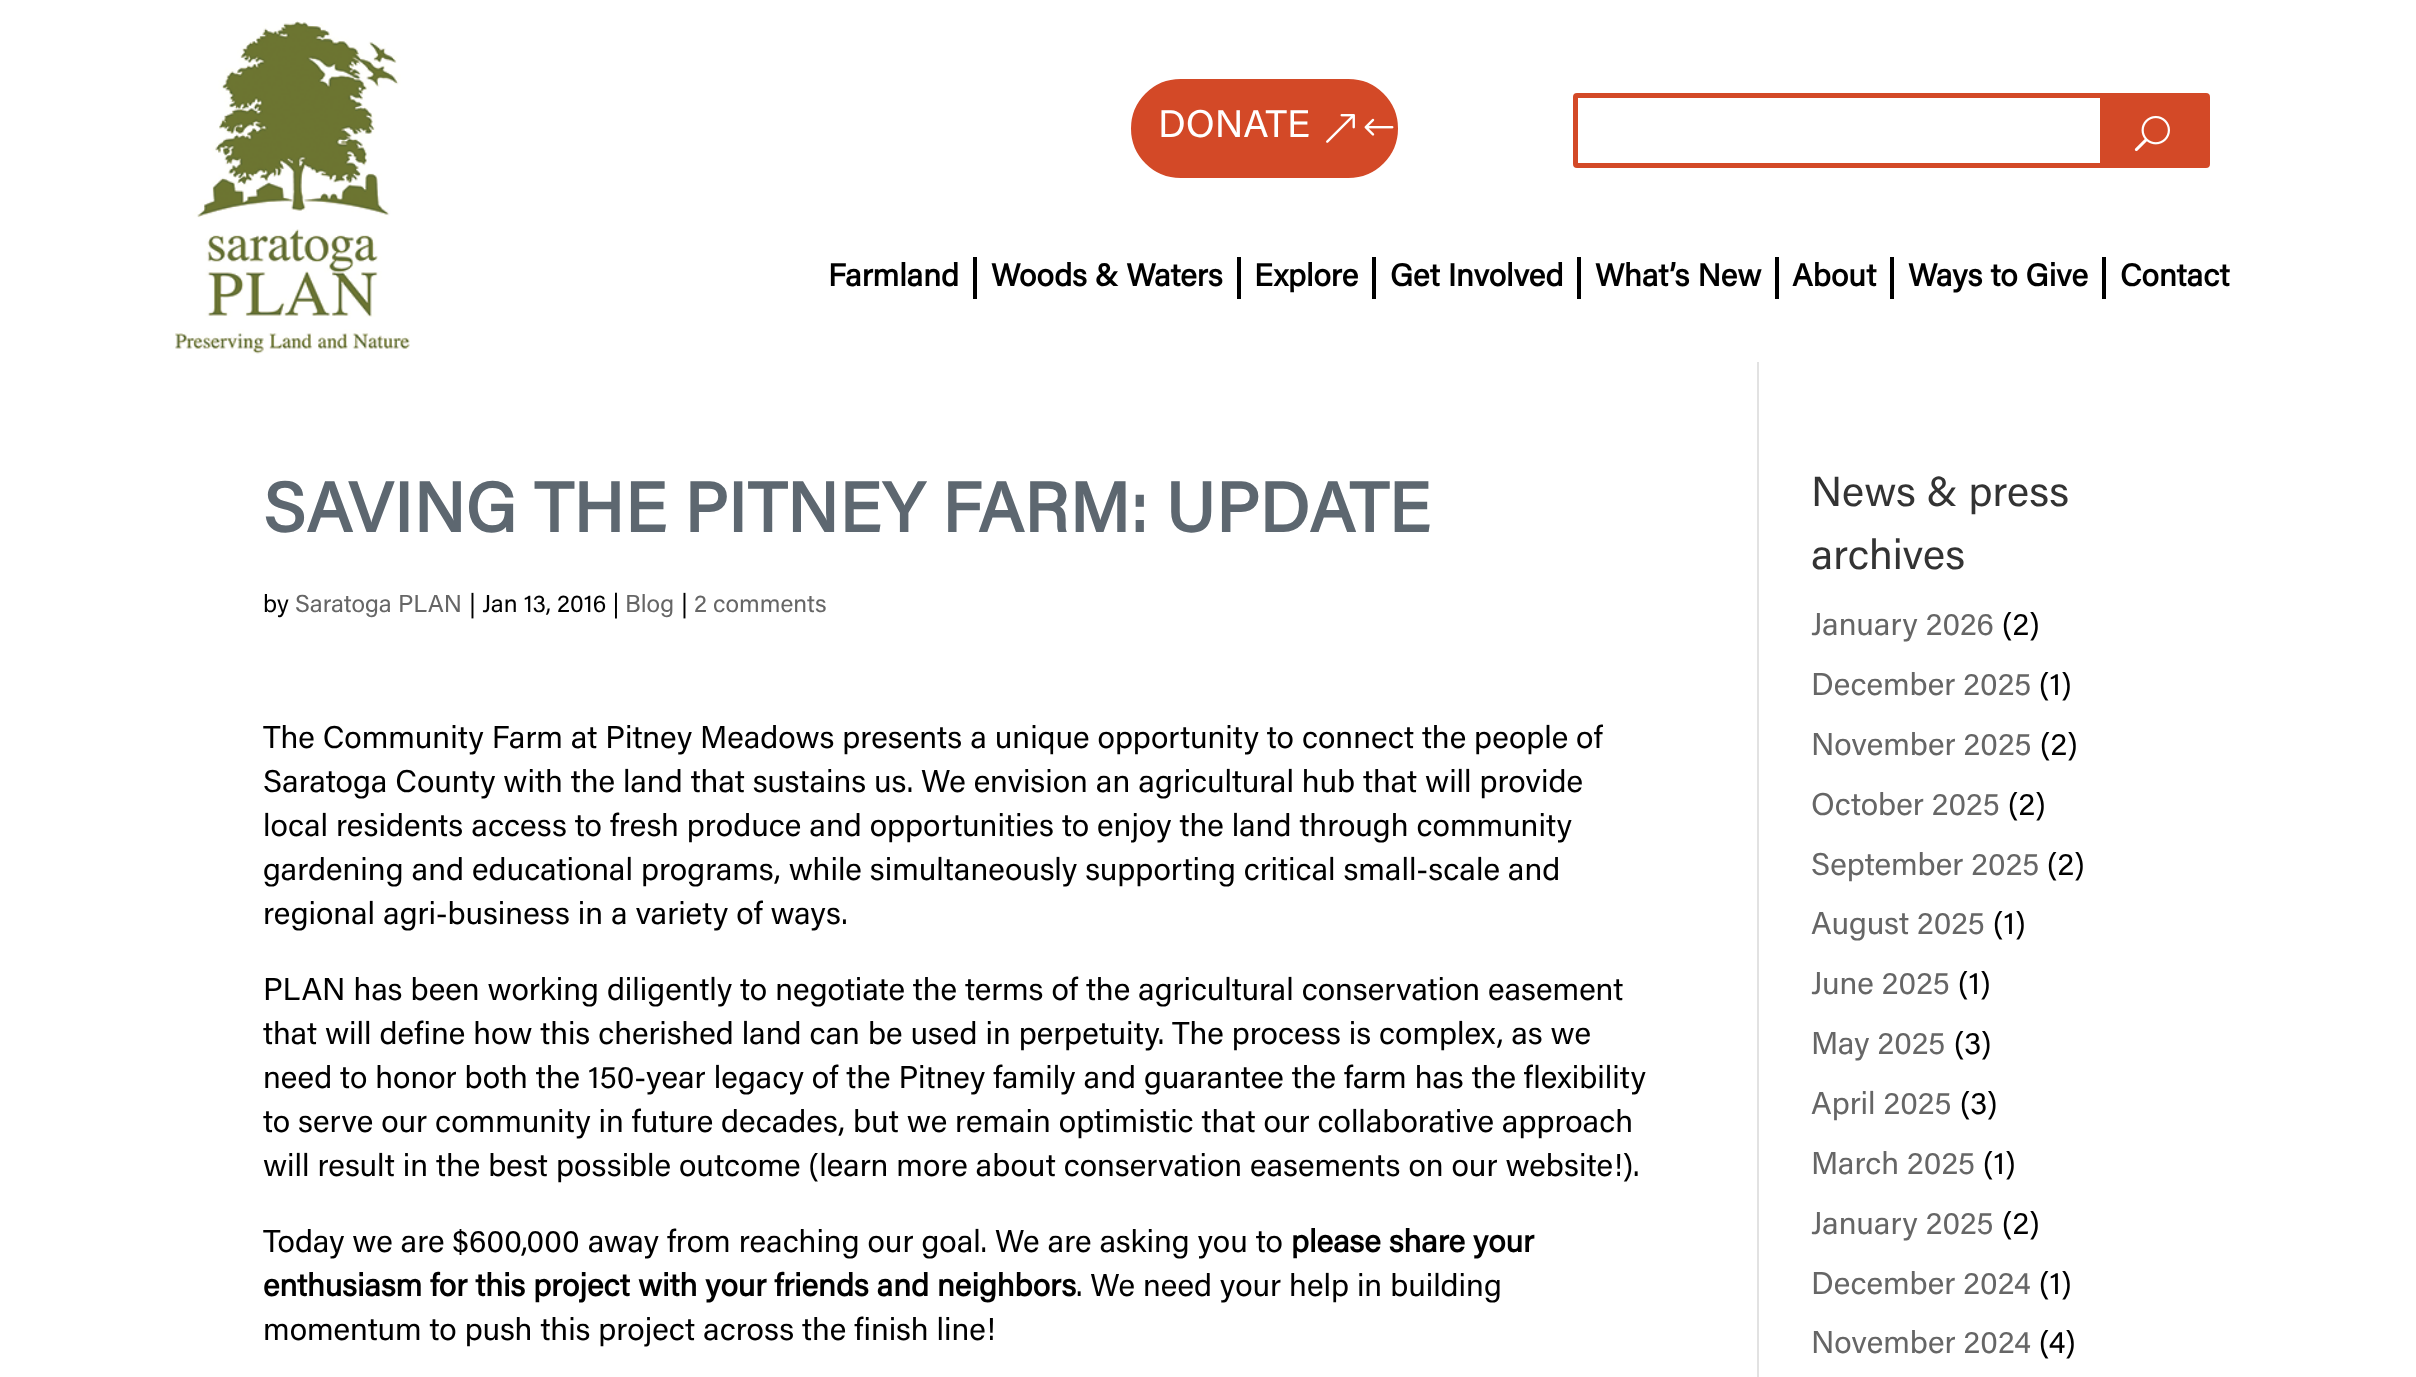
<!DOCTYPE html>
<meta charset="utf-8">
<style>body { margin: 0 } canvas { display: block }</style>
<canvas id="canvas" width="2416" height="1377"></canvas>
<script type="module">
  const canvas = document.getElementById("canvas");
  const ctx = canvas.getContext("2d");
  ctx.miterLimit = 4;
  ctx.fontKerning = "normal";
  async function loadImage(src) {
    const img = new Image();
    img.src = src;
    await img.decode();
    return img;
  }

  ctx.fillStyle = "#ffffff";
  ctx.fillRect(0, 0, 2416, 1377);
  ctx.drawImage(await loadImage("img1.png"), 175, 21, 235, 333);
  ctx.fillStyle = "#d34927";
  ctx.beginPath();
  ctx.roundRect(1126.5, 74.5, 276, 108, 54);
  ctx.fill();
  ctx.strokeStyle = "#ffffff";
  ctx.lineWidth = 9;
  ctx.stroke();
  ctx.font = "38.5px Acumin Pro";
  ctx.fillStyle = "#ffffff";
  ctx.fillText("DONATE", 1158, 137);
  ctx.drawImage(await loadImage("img2.png"), 1326, 114, 81, 29);
  ctx.beginPath();
  ctx.roundRect(1575.5, 95.5, 632, 70, 1.5);
  ctx.strokeStyle = "#d34927";
  ctx.lineWidth = 5;
  ctx.stroke();
  ctx.fillStyle = "#d34927";
  ctx.fillRect(2100, 98, 105, 65);
  ctx.drawImage(await loadImage("img3.png"), 2134, 115, 36, 37);
  ctx.fillStyle = "#000000";
  ctx.fillRect(973, 257, 4, 42);
  ctx.font = "bold 31.5px Acumin Pro";
  ctx.fillText("Farmland", 828, 286);
  ctx.fillRect(1237, 257, 4, 42);
  ctx.fillText("Woods & Waters", 991, 286);
  ctx.fillRect(1372, 257, 4, 42);
  ctx.fillText("Explore", 1254, 286);
  ctx.fillRect(1577, 257, 4, 42);
  ctx.fillText("Get Involved", 1390, 286);
  ctx.fillRect(1775, 257, 4, 42);
  ctx.fillText("What’s New", 1595, 286);
  ctx.fillRect(1890, 257, 4, 42);
  ctx.fillText("About", 1792, 286);
  ctx.fillRect(2102, 257, 4, 42);
  ctx.fillText("Ways to Give", 1908, 286);
  ctx.fillText("Contact", 2120, 286);
  ctx.fillStyle = "#e2e2e2";
  ctx.fillRect(1757, 362, 2, 1015);
  ctx.font = "bold 70px Acumin Pro";
  ctx.fillStyle = "#5d6770";
  ctx.fillText("SAVING THE PITNEY FARM: UPDATE", 263, 532);
  ctx.font = "24.5px Acumin Pro";
  ctx.fillStyle = "#000000";
  ctx.fillText("by", 263, 612);
  ctx.fillStyle = "#666666";
  ctx.fillText("Saratoga PLAN", 295, 612);
  ctx.fillStyle = "#000000";
  ctx.fillText("| Jan 13, 2016 |", 469, 612);
  ctx.fillStyle = "#666666";
  ctx.fillText("Blog", 625, 612);
  ctx.fillStyle = "#000000";
  ctx.fillText("|", 681, 612);
  ctx.fillStyle = "#666666";
  ctx.fillText("2 comments", 694, 612);
  ctx.font = "31.5px Acumin Pro";
  ctx.fillStyle = "#000000";
  ctx.fillText("The Community Farm at Pitney Meadows presents a unique opportunity to connect the people of", 263, 748);
  ctx.fillText("Saratoga County with the land that sustains us. We envision an agricultural hub that will provide", 263, 792);
  ctx.fillText("local residents access to fresh produce and opportunities to enjoy the land through community", 263, 836);
  ctx.fillText("gardening and educational programs, while simultaneously supporting critical small-scale and", 263, 880);
  ctx.fillText("regional agri-business in a variety of ways.", 263, 924);
  ctx.fillText("PLAN has been working diligently to negotiate the terms of the agricultural conservation easement", 263, 1000);
  ctx.fillText("that will define how this cherished land can be used in perpetuity. The process is complex, as we", 263, 1044);
  ctx.fillText("need to honor both the 150-year legacy of the Pitney family and guarantee the farm has the flexibility", 263, 1088);
  ctx.fillText("to serve our community in future decades, but we remain optimistic that our collaborative approach", 263, 1132);
  ctx.fillText("will result in the best possible outcome (learn more about conservation easements on our website!).", 263, 1176);
  ctx.fillText("Today we are $600,000 away from reaching our goal. We are asking you to", 263, 1252);
  ctx.font = "bold 31.5px Acumin Pro";
  ctx.fillText("please share your", 1291, 1252);
  ctx.fillText("enthusiasm for this project with your friends and neighbors", 263, 1296);
  ctx.font = "31.5px Acumin Pro";
  ctx.fillText(". We need your help in building", 1076, 1296);
  ctx.fillText("momentum to push this project across the finish line!", 263, 1340);
  ctx.font = "42px Acumin Pro";
  ctx.fillStyle = "#333333";
  ctx.fillText("News & press", 1811, 506);
  ctx.fillText("archives", 1811, 569);
  ctx.font = "31.5px Acumin Pro";
  ctx.fillStyle = "#666666";
  ctx.fillText("January 2026", 1811, 635);
  ctx.fillStyle = "#000000";
  ctx.fillText("(2)", 2002, 635);
  ctx.fillStyle = "#666666";
  ctx.fillText("December 2025", 1811, 695);
  ctx.fillStyle = "#000000";
  ctx.fillText("(1)", 2039, 695);
  ctx.fillStyle = "#666666";
  ctx.fillText("November 2025", 1811, 755);
  ctx.fillStyle = "#000000";
  ctx.fillText("(2)", 2040, 755);
  ctx.fillStyle = "#666666";
  ctx.fillText("October 2025", 1811, 815);
  ctx.fillStyle = "#000000";
  ctx.fillText("(2)", 2008, 815);
  ctx.fillStyle = "#666666";
  ctx.fillText("September 2025", 1811, 875);
  ctx.fillStyle = "#000000";
  ctx.fillText("(2)", 2047, 875);
  ctx.fillStyle = "#666666";
  ctx.fillText("August 2025", 1811, 934);
  ctx.fillStyle = "#000000";
  ctx.fillText("(1)", 1993, 934);
  ctx.fillStyle = "#666666";
  ctx.fillText("June 2025", 1811, 994);
  ctx.fillStyle = "#000000";
  ctx.fillText("(1)", 1958, 994);
  ctx.fillStyle = "#666666";
  ctx.fillText("May 2025", 1811, 1054);
  ctx.fillStyle = "#000000";
  ctx.fillText("(3)", 1954, 1054);
  ctx.fillStyle = "#666666";
  ctx.fillText("April 2025", 1811, 1114);
  ctx.fillStyle = "#000000";
  ctx.fillText("(3)", 1960, 1114);
  ctx.fillStyle = "#666666";
  ctx.fillText("March 2025", 1811, 1174);
  ctx.fillStyle = "#000000";
  ctx.fillText("(1)", 1983, 1174);
  ctx.fillStyle = "#666666";
  ctx.fillText("January 2025", 1811, 1234);
  ctx.fillStyle = "#000000";
  ctx.fillText("(2)", 2002, 1234);
  ctx.fillStyle = "#666666";
  ctx.fillText("December 2024", 1811, 1294);
  ctx.fillStyle = "#000000";
  ctx.fillText("(1)", 2039, 1294);
  ctx.fillStyle = "#666666";
  ctx.fillText("November 2024", 1811, 1353);
  ctx.fillStyle = "#000000";
  ctx.fillText("(4)", 2039, 1353);
</script>
